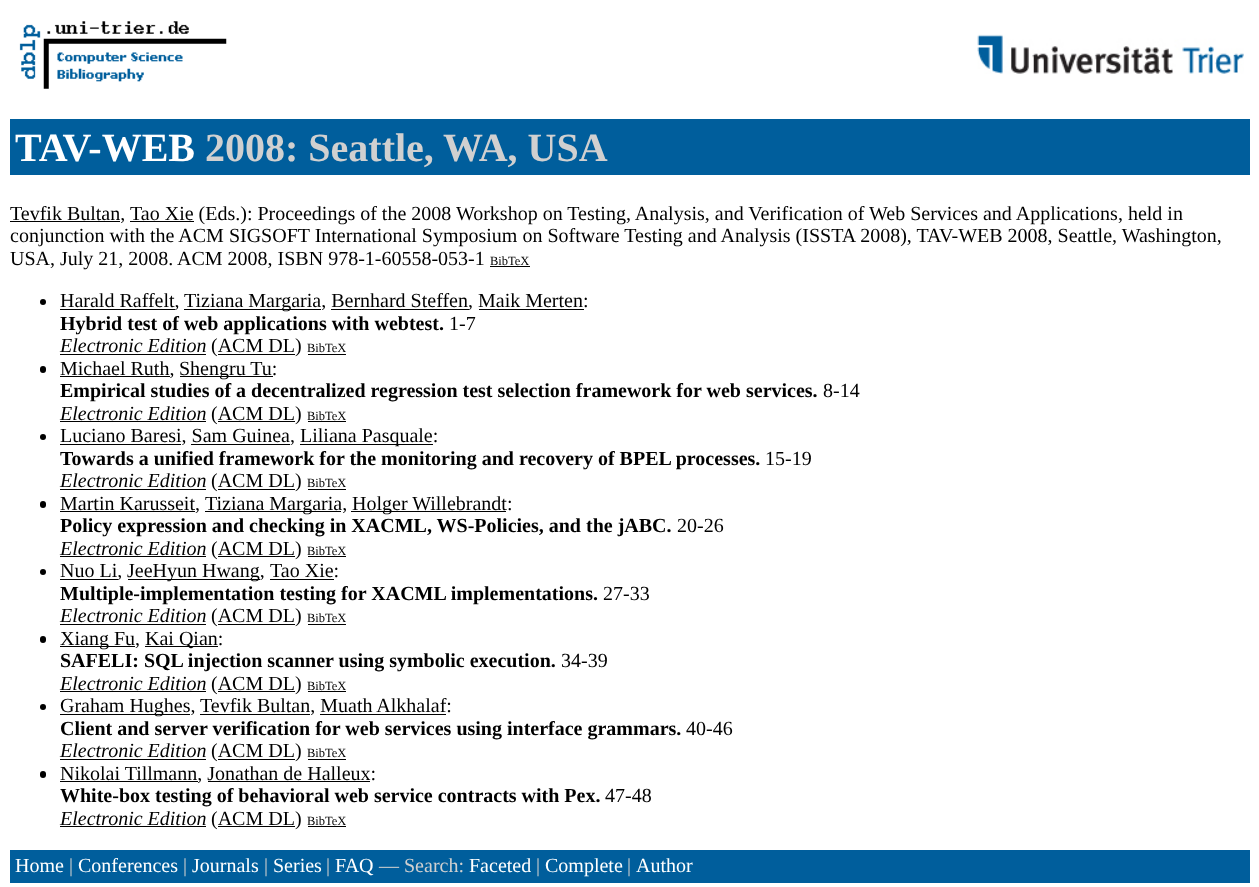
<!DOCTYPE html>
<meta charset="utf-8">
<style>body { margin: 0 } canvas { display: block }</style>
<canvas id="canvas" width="1259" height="887"></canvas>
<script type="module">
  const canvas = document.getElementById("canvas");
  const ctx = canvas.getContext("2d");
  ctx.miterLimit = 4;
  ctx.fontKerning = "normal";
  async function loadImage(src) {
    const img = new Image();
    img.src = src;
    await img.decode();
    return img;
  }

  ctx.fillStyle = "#ffffff";
  ctx.fillRect(0, 0, 1259, 887);
  ctx.drawImage(await loadImage("img1.png"), 19, 21, 208, 68);
  ctx.drawImage(await loadImage("img2.png"), 977, 34, 267, 40);
  ctx.fillStyle = "#005e9c";
  ctx.fillRect(10, 119, 1240, 56);
  ctx.font = "bold 40px Liberation Serif";
  ctx.fillStyle = "#ffffff";
  ctx.fillText("TAV-WEB", 15, 161);
  ctx.fillStyle = "#d0d0d0";
  ctx.fillText("2008: Seattle, WA, USA", 205, 161);
  ctx.fillStyle = "#000000";
  ctx.fillRect(10, 221, 110, 1);
  ctx.font = "20px Liberation Serif";
  ctx.fillText("Tevfik Bultan,", 10, 220);
  ctx.fillRect(130, 221, 64, 1);
  ctx.fillText("Tao Xie (Eds.): Proceedings of the 2008 Workshop on Testing, Analysis, and Verification of Web Services and Applications, held in", 130, 220);
  ctx.fillText("conjunction with the ACM SIGSOFT International Symposium on Software Testing and Analysis (ISSTA 2008), TAV-WEB 2008, Seattle, Washington,", 10, 242);
  ctx.fillText("USA, July 21, 2008.", 10, 265);
  ctx.fillText("ACM 2008, ISBN 978-1-60558-053-1", 177, 265);
  ctx.font = "12.5px Liberation Serif";
  ctx.fillText("BibTeX", 490, 265);
  ctx.fillRect(490, 266, 40, 1);
  ctx.beginPath();
  ctx.arc(43, 302, 3, 0, Math.PI * 2);
  ctx.fill();
  ctx.fillRect(60, 309, 115, 1);
  ctx.font = "20px Liberation Serif";
  ctx.fillText("Harald Raffelt,", 60, 307);
  ctx.fillRect(184, 309, 137, 1);
  ctx.fillText("Tiziana Margaria, Bernhard Steffen, Maik Merten:", 184, 307);
  ctx.fillRect(331, 309, 138, 1);
  ctx.fillRect(479, 309, 105, 1);
  ctx.font = "bold 20px Liberation Serif";
  ctx.fillText("Hybrid test of web applications with webtest.", 60, 330);
  ctx.font = "20px Liberation Serif";
  ctx.fillText("1-7", 449, 330);
  ctx.font = "italic 20px Liberation Serif";
  ctx.fillText("Electronic Edition", 60, 352);
  ctx.fillRect(60, 354, 146, 1);
  ctx.font = "20px Liberation Serif";
  ctx.fillText("(ACM DL)", 211, 352);
  ctx.font = "12.5px Liberation Serif";
  ctx.fillText("BibTeX", 307, 352);
  ctx.fillRect(308, 354, 38, 1);
  ctx.fillRect(218, 354, 77, 1);
  ctx.beginPath();
  ctx.roundRect(40, 366, 6, 7, 3);
  ctx.fill();
  ctx.fillRect(60, 376, 110, 1);
  ctx.font = "20px Liberation Serif";
  ctx.fillText("Michael Ruth,", 60, 375);
  ctx.fillRect(180, 376, 93, 1);
  ctx.fillText("Shengru Tu:", 179, 375);
  ctx.font = "bold 20px Liberation Serif";
  ctx.fillText("Empirical studies of a decentralized regression test selection framework for web services.", 60, 397);
  ctx.font = "20px Liberation Serif";
  ctx.fillText("8-14", 823, 397);
  ctx.font = "italic 20px Liberation Serif";
  ctx.fillText("Electronic Edition", 60, 420);
  ctx.fillRect(60, 421, 146, 1);
  ctx.font = "20px Liberation Serif";
  ctx.fillText("(ACM DL)", 211, 420);
  ctx.font = "12.5px Liberation Serif";
  ctx.fillText("BibTeX", 307, 420);
  ctx.fillRect(308, 421, 38, 1);
  ctx.fillRect(218, 421, 77, 1);
  ctx.beginPath();
  ctx.arc(43, 437, 3, 0, Math.PI * 2);
  ctx.fill();
  ctx.fillRect(60, 444, 121, 1);
  ctx.font = "20px Liberation Serif";
  ctx.fillText("Luciano Baresi, Sam Guinea,", 60, 442);
  ctx.fillRect(300, 444, 133, 1);
  ctx.fillText("Liliana Pasquale:", 300, 442);
  ctx.fillRect(191, 444, 99, 1);
  ctx.font = "bold 20px Liberation Serif";
  ctx.fillText("Towards a unified framework for the monitoring and recovery of BPEL processes.", 60, 465);
  ctx.font = "20px Liberation Serif";
  ctx.fillText("15-19", 765, 465);
  ctx.font = "italic 20px Liberation Serif";
  ctx.fillText("Electronic Edition", 60, 487);
  ctx.fillRect(60, 489, 146, 1);
  ctx.font = "20px Liberation Serif";
  ctx.fillText("(ACM DL)", 211, 487);
  ctx.font = "12.5px Liberation Serif";
  ctx.fillText("BibTeX", 307, 487);
  ctx.fillRect(308, 489, 38, 1);
  ctx.fillRect(218, 489, 77, 1);
  ctx.beginPath();
  ctx.roundRect(40, 501, 6, 7, 3);
  ctx.fill();
  ctx.fillRect(60, 511, 135, 1);
  ctx.font = "20px Liberation Serif";
  ctx.fillText("Martin Karusseit,", 60, 510);
  ctx.fillRect(205, 511, 136, 1);
  ctx.fillText("Tiziana Margaria,", 205, 510);
  ctx.fillRect(351, 511, 155, 1);
  ctx.fillText("Holger Willebrandt:", 352, 510);
  ctx.font = "bold 20px Liberation Serif";
  ctx.fillText("Policy expression and checking in XACML, WS-Policies, and the jABC.", 60, 532);
  ctx.font = "20px Liberation Serif";
  ctx.fillText("20-26", 677, 532);
  ctx.font = "italic 20px Liberation Serif";
  ctx.fillText("Electronic Edition", 60, 555);
  ctx.fillRect(60, 556, 146, 1);
  ctx.font = "20px Liberation Serif";
  ctx.fillText("(ACM DL)", 211, 555);
  ctx.font = "12.5px Liberation Serif";
  ctx.fillText("BibTeX", 307, 555);
  ctx.fillRect(308, 556, 38, 1);
  ctx.fillRect(218, 556, 77, 1);
  ctx.beginPath();
  ctx.arc(43, 572, 3, 0, Math.PI * 2);
  ctx.fill();
  ctx.fillRect(60, 579, 58, 1);
  ctx.font = "20px Liberation Serif";
  ctx.fillText("Nuo Li,", 60, 577);
  ctx.fillRect(128, 579, 132, 1);
  ctx.fillText("JeeHyun Hwang,", 127, 577);
  ctx.fillText("Tao Xie:", 270, 577);
  ctx.fillRect(270, 579, 64, 1);
  ctx.font = "bold 20px Liberation Serif";
  ctx.fillText("Multiple-implementation testing for XACML implementations.", 60, 600);
  ctx.font = "20px Liberation Serif";
  ctx.fillText("27-33", 603, 600);
  ctx.font = "italic 20px Liberation Serif";
  ctx.fillText("Electronic Edition", 60, 622);
  ctx.fillRect(60, 624, 146, 1);
  ctx.font = "20px Liberation Serif";
  ctx.fillText("(ACM DL)", 211, 622);
  ctx.font = "12.5px Liberation Serif";
  ctx.fillText("BibTeX", 307, 622);
  ctx.fillRect(308, 624, 38, 1);
  ctx.fillRect(218, 624, 77, 1);
  ctx.beginPath();
  ctx.roundRect(40, 636, 6, 7, 3);
  ctx.fill();
  ctx.fillRect(60, 646, 75, 1);
  ctx.font = "20px Liberation Serif";
  ctx.fillText("Xiang Fu,", 60, 645);
  ctx.fillRect(145, 646, 73, 1);
  ctx.fillText("Kai Qian:", 145, 645);
  ctx.font = "bold 20px Liberation Serif";
  ctx.fillText("SAFELI: SQL injection scanner using symbolic execution.", 60, 667);
  ctx.font = "20px Liberation Serif";
  ctx.fillText("34-39", 561, 667);
  ctx.font = "italic 20px Liberation Serif";
  ctx.fillText("Electronic Edition", 60, 690);
  ctx.fillRect(60, 691, 146, 1);
  ctx.font = "20px Liberation Serif";
  ctx.fillText("(ACM DL)", 211, 690);
  ctx.font = "12.5px Liberation Serif";
  ctx.fillText("BibTeX", 307, 690);
  ctx.fillRect(308, 691, 38, 1);
  ctx.fillRect(218, 691, 77, 1);
  ctx.beginPath();
  ctx.arc(43, 707, 3, 0, Math.PI * 2);
  ctx.fill();
  ctx.fillRect(60, 714, 130, 1);
  ctx.font = "20px Liberation Serif";
  ctx.fillText("Graham Hughes,", 60, 712);
  ctx.fillRect(200, 714, 110, 1);
  ctx.fillText("Tevfik Bultan, Muath Alkhalaf:", 200, 712);
  ctx.fillRect(320, 714, 126, 1);
  ctx.font = "bold 20px Liberation Serif";
  ctx.fillText("Client and server verification for web services using interface grammars.", 60, 735);
  ctx.font = "20px Liberation Serif";
  ctx.fillText("40-46", 686, 735);
  ctx.font = "italic 20px Liberation Serif";
  ctx.fillText("Electronic Edition", 60, 757);
  ctx.fillRect(60, 759, 146, 1);
  ctx.font = "20px Liberation Serif";
  ctx.fillText("(ACM DL)", 211, 757);
  ctx.font = "12.5px Liberation Serif";
  ctx.fillText("BibTeX", 307, 757);
  ctx.fillRect(308, 759, 38, 1);
  ctx.fillRect(218, 759, 77, 1);
  ctx.beginPath();
  ctx.roundRect(40, 771, 6, 7, 3);
  ctx.fill();
  ctx.fillRect(60, 781, 138, 1);
  ctx.font = "20px Liberation Serif";
  ctx.fillText("Nikolai Tillmann, Jonathan de Halleux:", 60, 780);
  ctx.fillRect(208, 781, 162, 1);
  ctx.font = "bold 20px Liberation Serif";
  ctx.fillText("White-box testing of behavioral web service contracts with Pex.", 60, 802);
  ctx.font = "20px Liberation Serif";
  ctx.fillText("47-48", 605, 802);
  ctx.font = "italic 20px Liberation Serif";
  ctx.fillText("Electronic Edition", 60, 825);
  ctx.fillRect(60, 826, 146, 1);
  ctx.font = "20px Liberation Serif";
  ctx.fillText("(ACM DL)", 211, 825);
  ctx.font = "12.5px Liberation Serif";
  ctx.fillText("BibTeX", 307, 825);
  ctx.fillRect(308, 826, 38, 1);
  ctx.fillRect(218, 826, 77, 1);
  ctx.fillStyle = "#005e9c";
  ctx.fillRect(10, 850, 1240, 33);
  ctx.font = "20px Liberation Serif";
  ctx.fillStyle = "#ffffff";
  ctx.fillText("Home", 15, 872);
  ctx.fillStyle = "#d0d0d0";
  ctx.fillText("|", 69, 872);
  ctx.fillStyle = "#ffffff";
  ctx.fillText("Conferences", 78, 872);
  ctx.fillStyle = "#d0d0d0";
  ctx.fillText("|", 183, 872);
  ctx.fillStyle = "#ffffff";
  ctx.fillText("Journals", 192, 872);
  ctx.fillStyle = "#d0d0d0";
  ctx.fillText("|", 264, 872);
  ctx.fillStyle = "#ffffff";
  ctx.fillText("Series", 273, 872);
  ctx.fillStyle = "#d0d0d0";
  ctx.fillText("|", 326, 872);
  ctx.fillStyle = "#ffffff";
  ctx.fillText("FAQ", 335, 872);
  ctx.fillStyle = "#d0d0d0";
  ctx.fillText("— Search:", 379, 872);
  ctx.fillStyle = "#ffffff";
  ctx.fillText("Faceted", 469, 872);
  ctx.fillStyle = "#d0d0d0";
  ctx.fillText("|", 536, 872);
  ctx.fillStyle = "#ffffff";
  ctx.fillText("Complete", 545, 872);
  ctx.fillStyle = "#d0d0d0";
  ctx.fillText("|", 627, 872);
  ctx.fillStyle = "#ffffff";
  ctx.fillText("Author", 636, 872);
</script>
